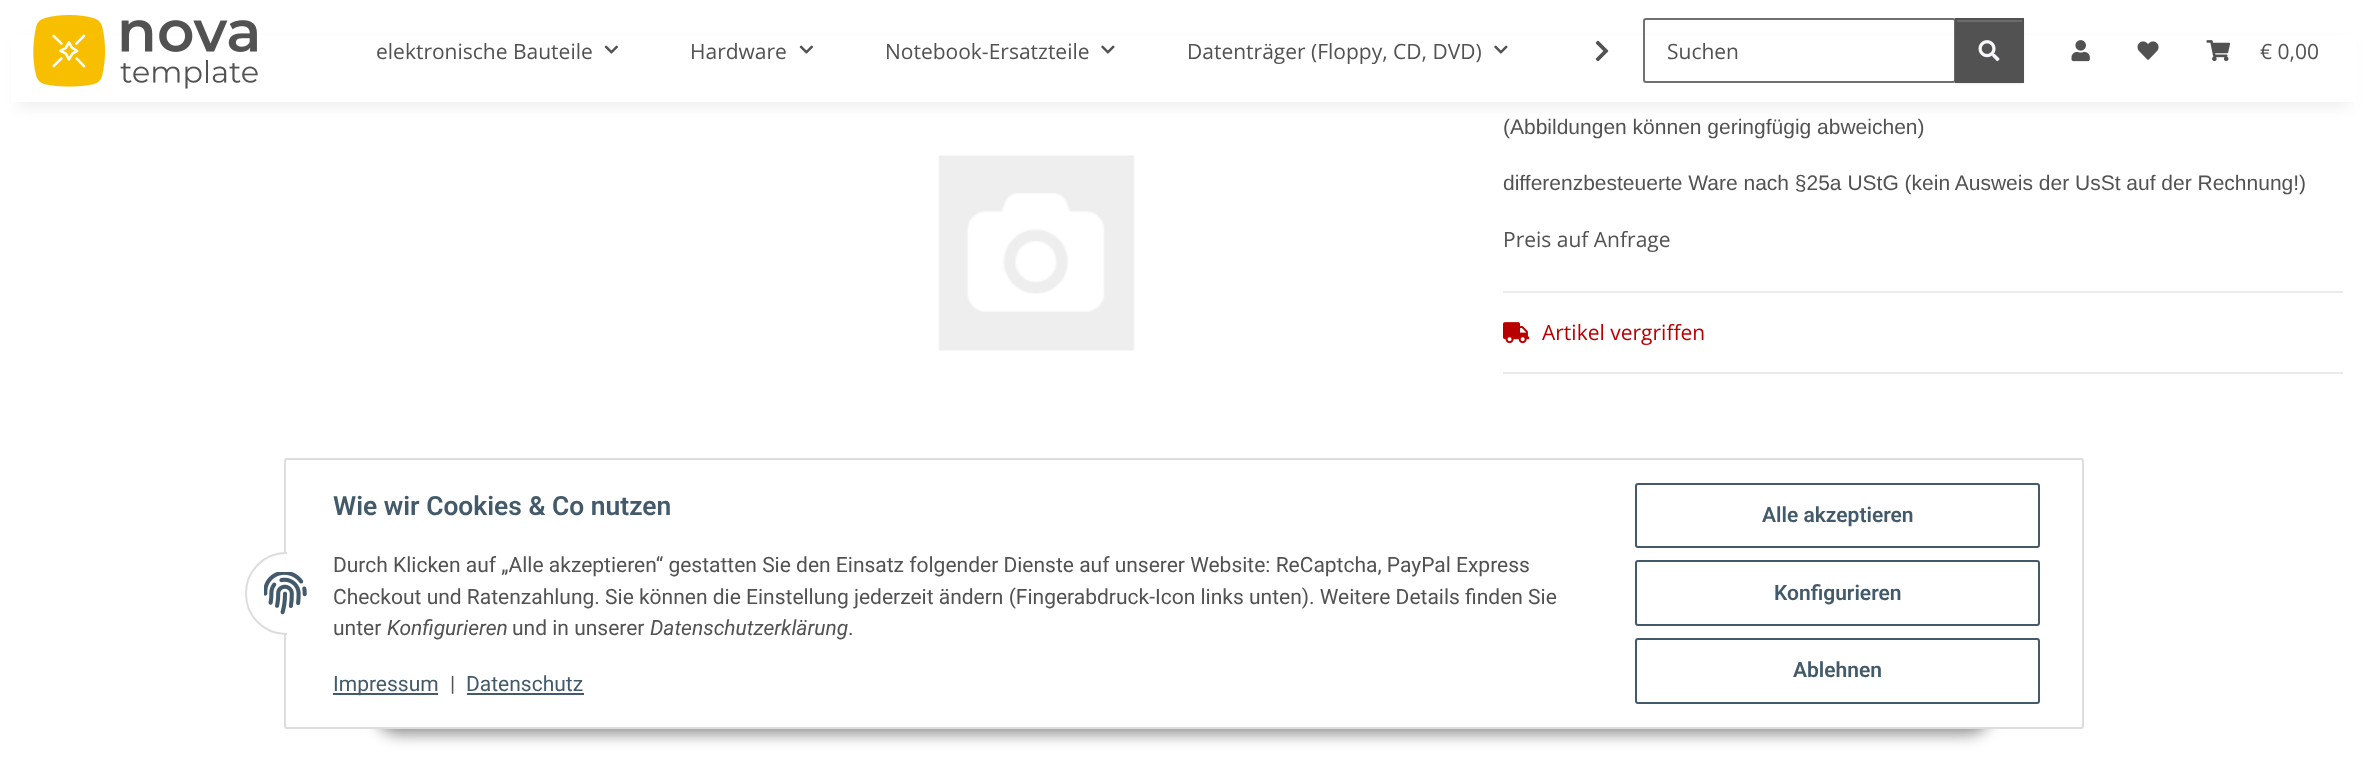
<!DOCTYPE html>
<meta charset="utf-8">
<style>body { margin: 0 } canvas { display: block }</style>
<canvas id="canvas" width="2366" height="776"></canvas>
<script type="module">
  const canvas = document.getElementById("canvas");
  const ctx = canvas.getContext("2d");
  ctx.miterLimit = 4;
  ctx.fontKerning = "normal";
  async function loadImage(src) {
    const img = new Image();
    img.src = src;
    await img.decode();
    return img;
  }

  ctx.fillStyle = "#ffffff";
  ctx.fillRect(0, 0, 2366, 776);
  ctx.fillStyle = "rgba(0, 0, 0, 0.06)";
  ctx.filter = "blur(7px)";
  ctx.beginPath();
  ctx.rect(18, 42, 2331, 66);
  ctx.fill();
  ctx.filter = "none";
  ctx.fillStyle = "#ffffff";
  ctx.fillRect(11, 35, 2345, 67);
  ctx.drawImage(await loadImage("img1.png"), 33, 15, 225, 74);
  ctx.font = "21px Open Sans";
  ctx.fillStyle = "#525252";
  ctx.fillText("elektronische Bauteile", 376, 59);
  ctx.drawImage(await loadImage("img2.png"), 604, 45, 14, 9);
  ctx.fillText("Hardware", 690, 59);
  ctx.drawImage(await loadImage("img2.png"), 799, 45, 14, 9);
  ctx.fillText("Notebook-Ersatzteile", 885, 59);
  ctx.drawImage(await loadImage("img3.png"), 1101, 45, 14, 9);
  ctx.fillText("Datenträger (Floppy, CD, DVD)", 1187, 59);
  ctx.drawImage(await loadImage("img3.png"), 1494, 45, 14, 9);
  ctx.drawImage(await loadImage("img4.png"), 1595, 40, 14, 22);
  ctx.beginPath();
  ctx.roundRect(1644, 19, 311, 63, 2);
  ctx.strokeStyle = "#707070";
  ctx.lineWidth = 2;
  ctx.stroke();
  ctx.fillText("Suchen", 1667, 59);
  ctx.fillStyle = "rgba(0, 0, 0, 0.07)";
  ctx.filter = "blur(1px)";
  ctx.beginPath();
  ctx.rect(1955, 20, 69, 64);
  ctx.fill();
  ctx.filter = "none";
  ctx.fillStyle = "#525252";
  ctx.fillRect(1957, 22, 65, 59);
  ctx.fillStyle = "#6c6c6c";
  ctx.fillRect(1956, 20, 66, 2);
  ctx.strokeStyle = "#525252";
  ctx.strokeRect(1956, 19, 67, 63);
  ctx.drawImage(await loadImage("img5.png"), 1978, 40, 22, 22);
  ctx.drawImage(await loadImage("img6.png"), 2071, 40, 19, 22);
  ctx.drawImage(await loadImage("img7.png"), 2137, 41, 22, 19);
  ctx.drawImage(await loadImage("img8.png"), 2206, 40, 25, 22);
  ctx.fillStyle = "#525252";
  ctx.fillText("€ 0,00", 2260, 59);
  ctx.drawImage(await loadImage("img9.png"), 938, 155, 197, 196);
  ctx.font = "21px Liberation Sans";
  ctx.fillText("(Abbildungen können geringfügig abweichen)", 1503, 134);
  ctx.fillText("differenzbesteuerte Ware nach §25a UStG (kein Ausweis der UsSt auf der Rechnung!)", 1503, 190);
  ctx.font = "21px Open Sans";
  ctx.fillText("Preis auf Anfrage", 1503, 247);
  ctx.fillStyle = "#ebebeb";
  ctx.fillRect(1503, 291, 840, 2);
  ctx.fillRect(1503, 372, 840, 2);
  ctx.drawImage(await loadImage("img10.png"), 1503, 322, 27, 22);
  ctx.fillStyle = "#b90000";
  ctx.fillText("Artikel vergriffen", 1542, 340);
  ctx.fillStyle = "rgba(0, 0, 0, 0.45)";
  ctx.filter = "blur(7.5px)";
  ctx.beginPath();
  ctx.roundRect(375, 686, 1617, 48, 24);
  ctx.fill();
  ctx.filter = "none";
  ctx.fillStyle = "#ffffff";
  ctx.beginPath();
  ctx.roundRect(285, 459, 1798, 269, 2);
  ctx.fill();
  ctx.strokeStyle = "#dddddd";
  ctx.stroke();
  ctx.beginPath();
  ctx.roundRect(246, 553, 80, 81, 40);
  ctx.fill();
  ctx.stroke();
  ctx.fillRect(287, 552, 40, 83);
  ctx.drawImage(await loadImage("img11.png"), 264, 572, 43, 43);
  ctx.font = "600 26.4px Roboto";
  ctx.fillStyle = "#435a6b";
  ctx.fillText("Wie wir Cookies & Co nutzen", 333, 515);
  ctx.font = "21px Roboto";
  ctx.fillStyle = "#525252";
  ctx.fillText("Durch Klicken auf „Alle akzeptieren“ gestatten Sie den Einsatz folgender Dienste auf unserer Website: ReCaptcha, PayPal Express", 333, 572);
  ctx.fillText("Checkout und Ratenzahlung. Sie können die Einstellung jederzeit ändern (Fingerabdruck-Icon links unten). Weitere Details finden Sie", 333, 604);
  ctx.fillText("unter", 333, 635);
  ctx.font = "italic 21px Roboto";
  ctx.fillText("Konfigurieren", 387, 635);
  ctx.font = "21px Roboto";
  ctx.fillText("und in unserer", 512, 635);
  ctx.font = "italic 21px Roboto";
  ctx.fillText("Datenschutzerklärung", 650, 635);
  ctx.font = "21px Roboto";
  ctx.fillText(".", 848, 635);
  ctx.fillStyle = "#435a6b";
  ctx.fillRect(333, 693, 105, 2);
  ctx.fillText("Impressum", 333, 691);
  ctx.fillStyle = "#525252";
  ctx.fillText("|", 450, 691);
  ctx.fillStyle = "#435a6b";
  ctx.fillText("Datenschutz", 466, 691);
  ctx.fillRect(467, 693, 117, 2);
  ctx.beginPath();
  ctx.roundRect(1636, 484, 403, 63, 2);
  ctx.strokeStyle = "#435a6b";
  ctx.stroke();
  ctx.font = "600 21px Roboto";
  ctx.fillText("Alle akzeptieren", 1762, 522);
  ctx.beginPath();
  ctx.roundRect(1636, 561, 403, 64, 2);
  ctx.stroke();
  ctx.fillText("Konfigurieren", 1774, 600);
  ctx.beginPath();
  ctx.roundRect(1636, 639, 403, 64, 2);
  ctx.stroke();
  ctx.fillText("Ablehnen", 1793, 677);
</script>
